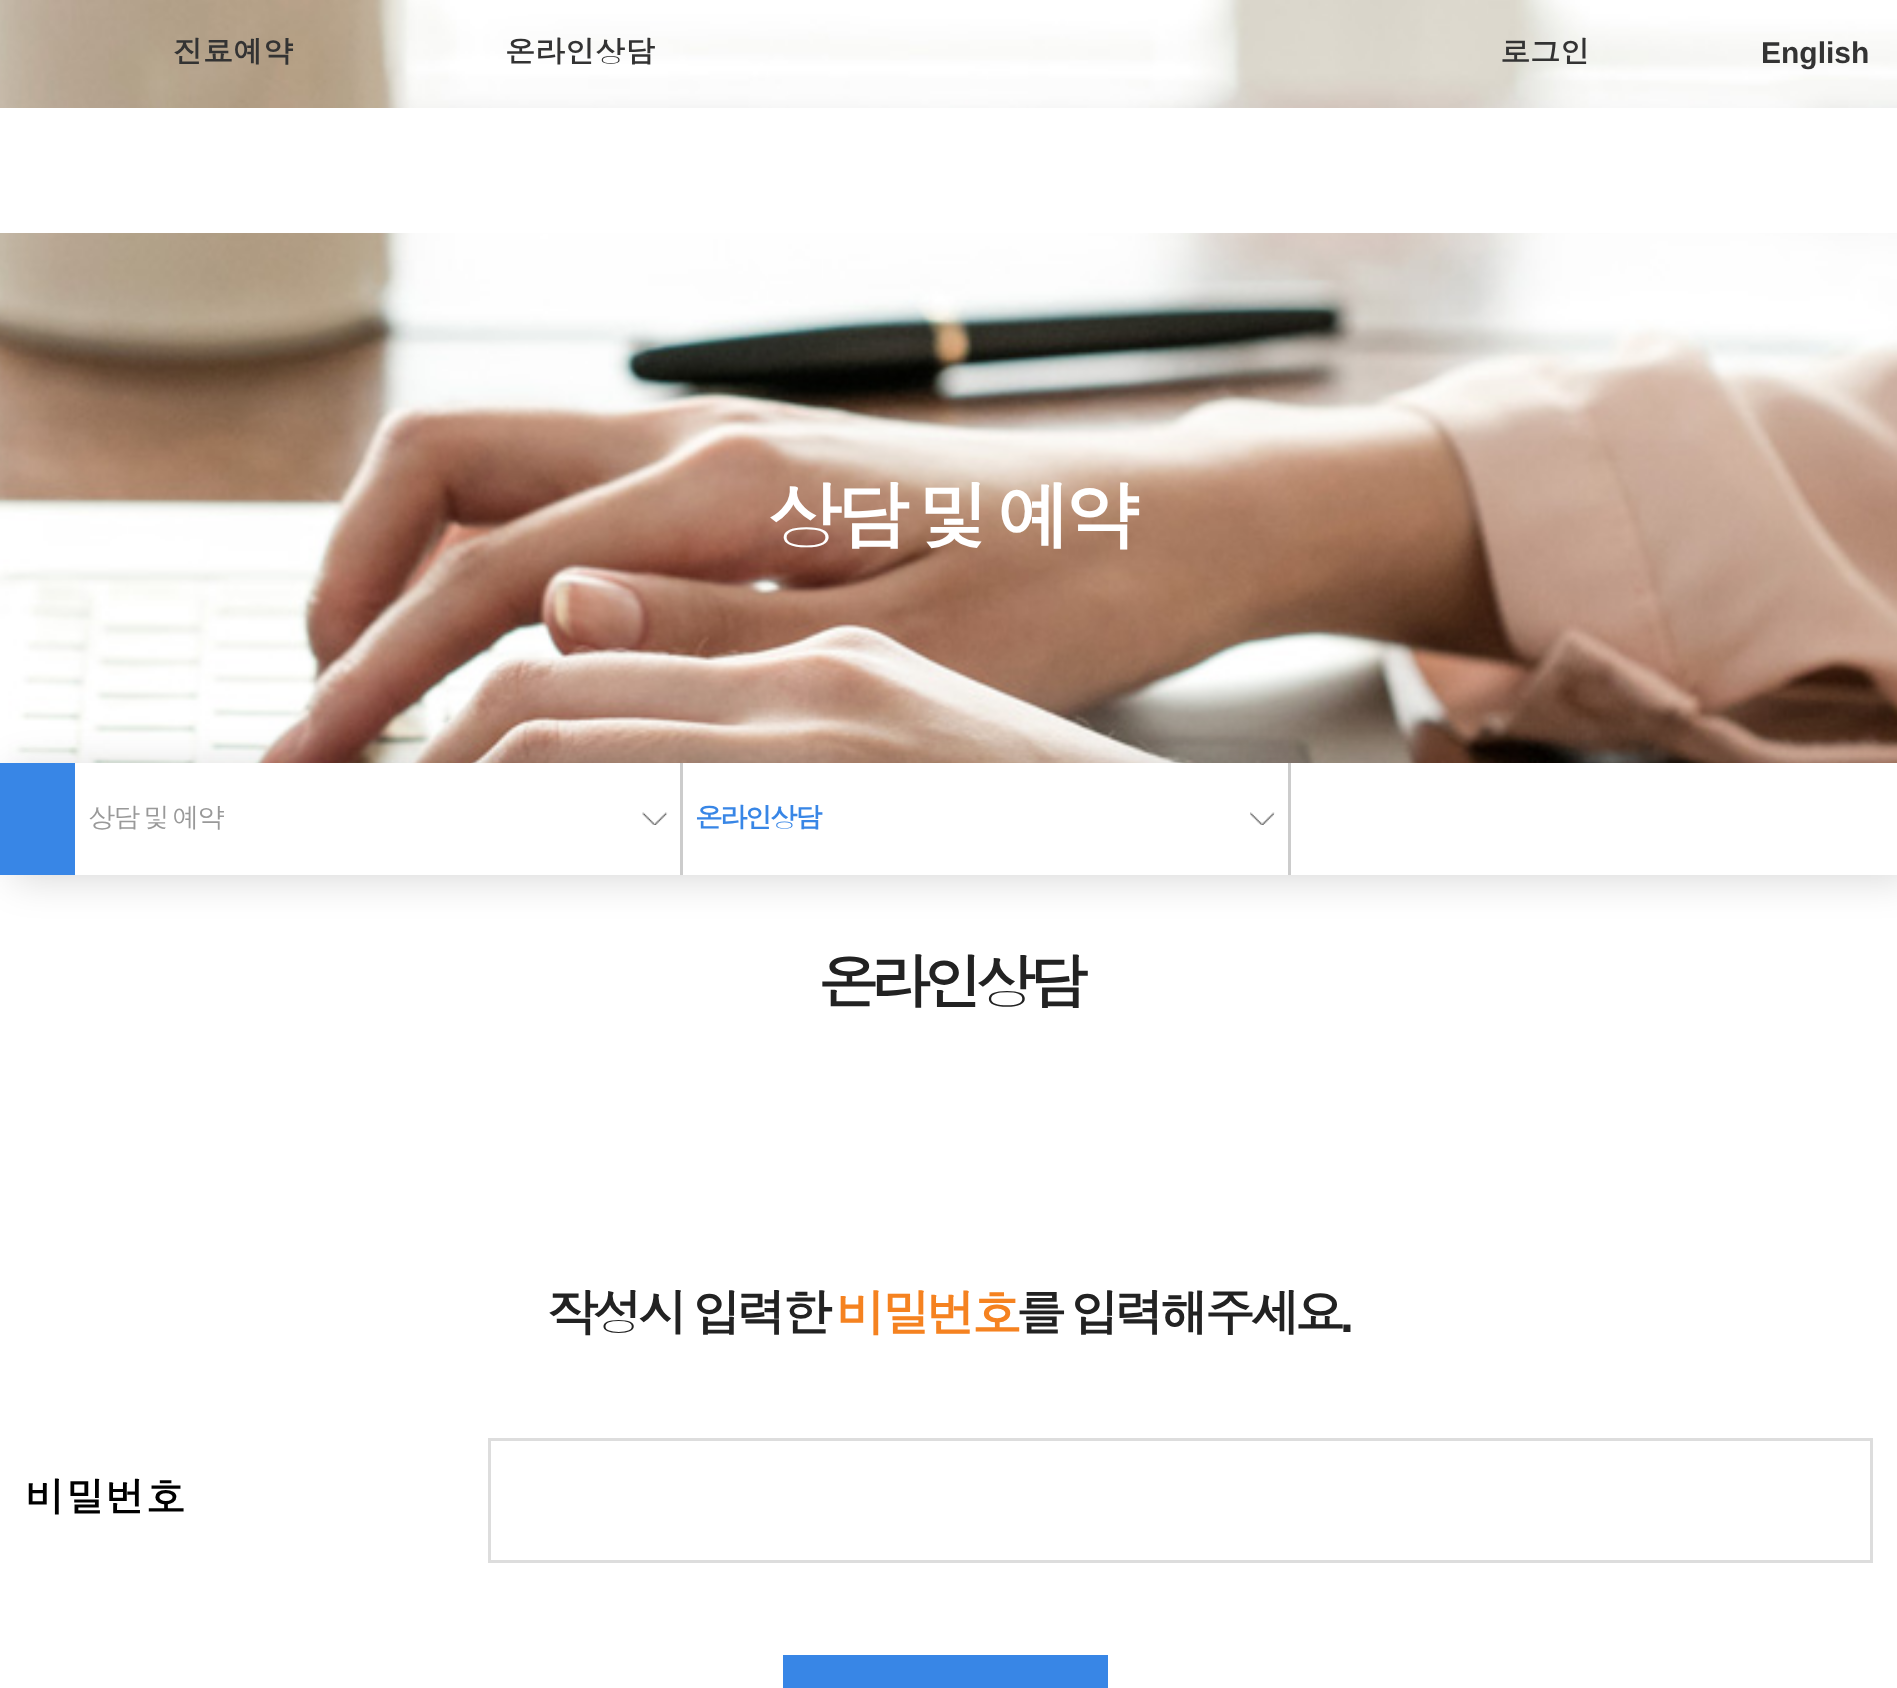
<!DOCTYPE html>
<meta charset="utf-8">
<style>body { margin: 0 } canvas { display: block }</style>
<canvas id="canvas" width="1897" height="1688"></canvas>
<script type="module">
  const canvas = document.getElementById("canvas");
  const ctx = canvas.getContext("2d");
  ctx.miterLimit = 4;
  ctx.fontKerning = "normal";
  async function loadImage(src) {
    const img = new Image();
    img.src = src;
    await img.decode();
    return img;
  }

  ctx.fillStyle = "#ffffff";
  ctx.fillRect(0, 0, 1897, 1688);
  ctx.drawImage(await loadImage("img1.png"), 0, 0, 1897, 763);
  ctx.font = "bold 30px Dotum";
  ctx.fillStyle = "#333333";
  ctx.fillText("진료예약", 173, 63);
  ctx.fillText("온라인상담", 505, 63);
  ctx.fillText("로그인", 1500, 63);
  ctx.font = "bold 30px Liberation Sans";
  ctx.fillText("English", 1761, 63);
  ctx.fillStyle = "#ffffff";
  ctx.fillRect(0, 108, 1897, 125);
  ctx.letterSpacing = "-7.5px";
  ctx.wordSpacing = "-4px";
  ctx.font = "bold 75px Dotum";
  ctx.fillText("상담 및 예약", 767, 545);
  ctx.fillStyle = "rgba(0, 0, 0, 0.15)";
  ctx.filter = "blur(19px)";
  ctx.beginPath();
  ctx.rect(13, 768, 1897, 112);
  ctx.fill();
  ctx.filter = "none";
  ctx.fillStyle = "#ffffff";
  ctx.fillRect(75, 763, 1822, 112);
  ctx.fillStyle = "#3886e6";
  ctx.fillRect(0, 763, 75, 112);
  ctx.drawImage(await loadImage("img2.png"), 642, 812, 26, 13);
  ctx.fillStyle = "#cccccc";
  ctx.fillRect(680, 763, 3, 112);
  ctx.letterSpacing = "-2.5px";
  ctx.wordSpacing = "-2px";
  ctx.font = "27.5px Dotum";
  ctx.fillStyle = "#999999";
  ctx.fillText("상담 및 예약", 88, 828);
  ctx.drawImage(await loadImage("img3.png"), 1250, 812, 25, 13);
  ctx.fillStyle = "#cccccc";
  ctx.fillRect(1288, 763, 3, 112);
  ctx.wordSpacing = "0px";
  ctx.font = "bold 27.5px Dotum";
  ctx.fillStyle = "#3886e6";
  ctx.fillText("온라인상담", 695, 828);
  ctx.letterSpacing = "-7.5px";
  ctx.font = "bold 60px Dotum";
  ctx.fillStyle = "#222222";
  ctx.fillText("온라인상담", 818, 1005);
  ctx.letterSpacing = "-5px";
  ctx.wordSpacing = "-3px";
  ctx.font = "bold 50px Dotum";
  ctx.fillText("작성시 입력한", 548, 1332);
  ctx.wordSpacing = "0px";
  ctx.fillStyle = "#f58220";
  ctx.fillText("비밀번호", 836, 1332);
  ctx.wordSpacing = "-3px";
  ctx.fillStyle = "#222222";
  ctx.fillText("를 입력해주세요", 1016, 1332);
  ctx.wordSpacing = "0px";
  ctx.font = "bold 50px Liberation Sans";
  ctx.fillText(".", 1340, 1332);
  ctx.letterSpacing = "0px";
  ctx.font = "bold 40px Dotum";
  ctx.fillStyle = "#000000";
  ctx.fillText("비밀번호", 25, 1512);
  ctx.strokeStyle = "#dddddd";
  ctx.lineWidth = 3;
  ctx.strokeRect(489.5, 1439.5, 1382, 122);
  ctx.fillStyle = "#3886e6";
  ctx.fillRect(783, 1655, 325, 33);
</script>
